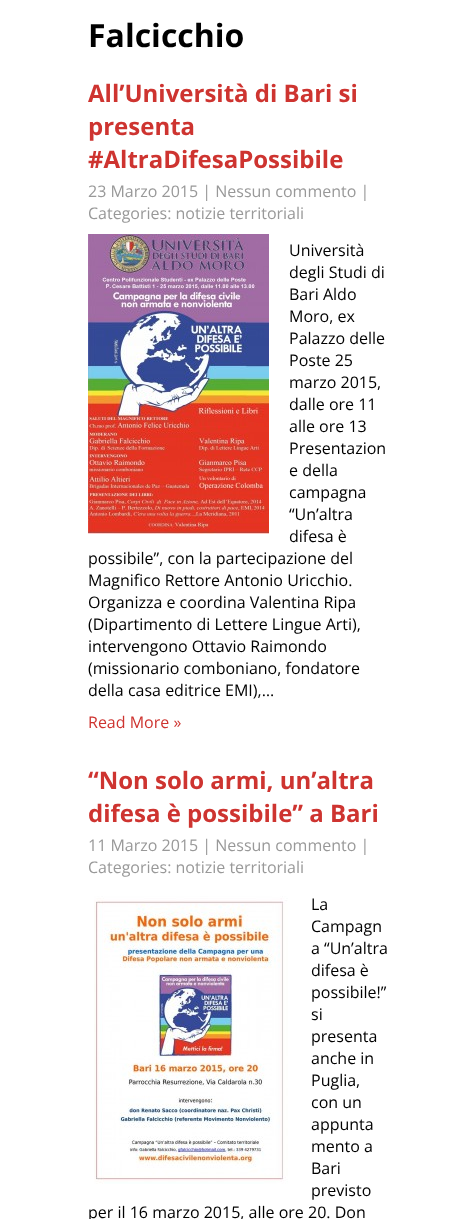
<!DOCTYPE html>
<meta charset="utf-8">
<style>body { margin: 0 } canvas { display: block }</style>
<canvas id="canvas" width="475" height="1219"></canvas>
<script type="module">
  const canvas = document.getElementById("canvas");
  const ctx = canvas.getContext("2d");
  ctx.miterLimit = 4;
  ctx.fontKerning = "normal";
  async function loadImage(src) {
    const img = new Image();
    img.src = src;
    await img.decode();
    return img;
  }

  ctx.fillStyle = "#ffffff";
  ctx.fillRect(0, 0, 475, 1219);
  ctx.font = "bold 32px Open Sans";
  ctx.fillStyle = "#000000";
  ctx.fillText("Falcicchio", 88, 47);
  ctx.font = "bold 24px Open Sans";
  ctx.fillStyle = "#ce3430";
  ctx.fillText("All’Università di Bari si", 88, 102);
  ctx.fillText("presenta", 88, 135);
  ctx.fillText("#AltraDifesaPossibile", 88, 168);
  ctx.font = "16px Open Sans";
  ctx.fillStyle = "#999999";
  ctx.fillText("23 Marzo 2015 | Nessun commento |", 88, 197);
  ctx.fillText("Categories: notizie territoriali", 88, 219);
  ctx.drawImage(await loadImage("img1.png"), 88, 234, 181, 300);
  ctx.fillStyle = "#000000";
  ctx.fillText("Università", 289, 256);
  ctx.fillText("degli Studi di", 289, 278);
  ctx.fillText("Bari Aldo", 289, 300);
  ctx.fillText("Moro, ex", 289, 322);
  ctx.fillText("Palazzo delle", 289, 344);
  ctx.fillText("Poste 25", 289, 366);
  ctx.fillText("marzo 2015,", 289, 388);
  ctx.fillText("dalle ore 11", 289, 410);
  ctx.fillText("alle ore 13", 289, 432);
  ctx.fillText("Presentazion", 289, 454);
  ctx.fillText("e della", 289, 476);
  ctx.fillText("campagna", 289, 498);
  ctx.fillText("“Un’altra", 289, 520);
  ctx.fillText("difesa è", 289, 542);
  ctx.fillText("possibile”, con la partecipazione del", 88, 564);
  ctx.fillText("Magnifico Rettore Antonio Uricchio.", 88, 586);
  ctx.fillText("Organizza e coordina Valentina Ripa", 88, 608);
  ctx.fillText("(Dipartimento di Lettere Lingue Arti),", 88, 630);
  ctx.fillText("intervengono Ottavio Raimondo", 88, 652);
  ctx.fillText("(missionario comboniano, fondatore", 88, 674);
  ctx.fillText("della casa editrice EMI),…", 88, 696);
  ctx.fillStyle = "#ce3430";
  ctx.fillText("Read More »", 88, 728);
  ctx.font = "bold 24px Open Sans";
  ctx.fillText("“Non solo armi, un’altra", 88, 789);
  ctx.fillText("difesa è possibile” a Bari", 88, 822);
  ctx.font = "16px Open Sans";
  ctx.fillStyle = "#999999";
  ctx.fillText("11 Marzo 2015 | Nessun commento |", 88, 851);
  ctx.fillText("Categories: notizie territoriali", 88, 873);
  ctx.drawImage(await loadImage("img2.png"), 94, 896, 194, 288);
  ctx.fillStyle = "#000000";
  ctx.fillText("La", 311, 910);
  ctx.fillText("Campagn", 311, 932);
  ctx.fillText("a “Un’altra", 311, 954);
  ctx.fillText("difesa è", 311, 976);
  ctx.fillText("possibile!”", 311, 998);
  ctx.fillText("si", 311, 1020);
  ctx.fillText("presenta", 311, 1042);
  ctx.fillText("anche in", 311, 1064);
  ctx.fillText("Puglia,", 311, 1086);
  ctx.fillText("con un", 311, 1108);
  ctx.fillText("appunta", 311, 1130);
  ctx.fillText("mento a", 311, 1152);
  ctx.fillText("Bari", 311, 1174);
  ctx.fillText("previsto", 311, 1196);
  ctx.fillText("per il 16 marzo 2015, alle ore 20. Don", 88, 1218);
</script>
